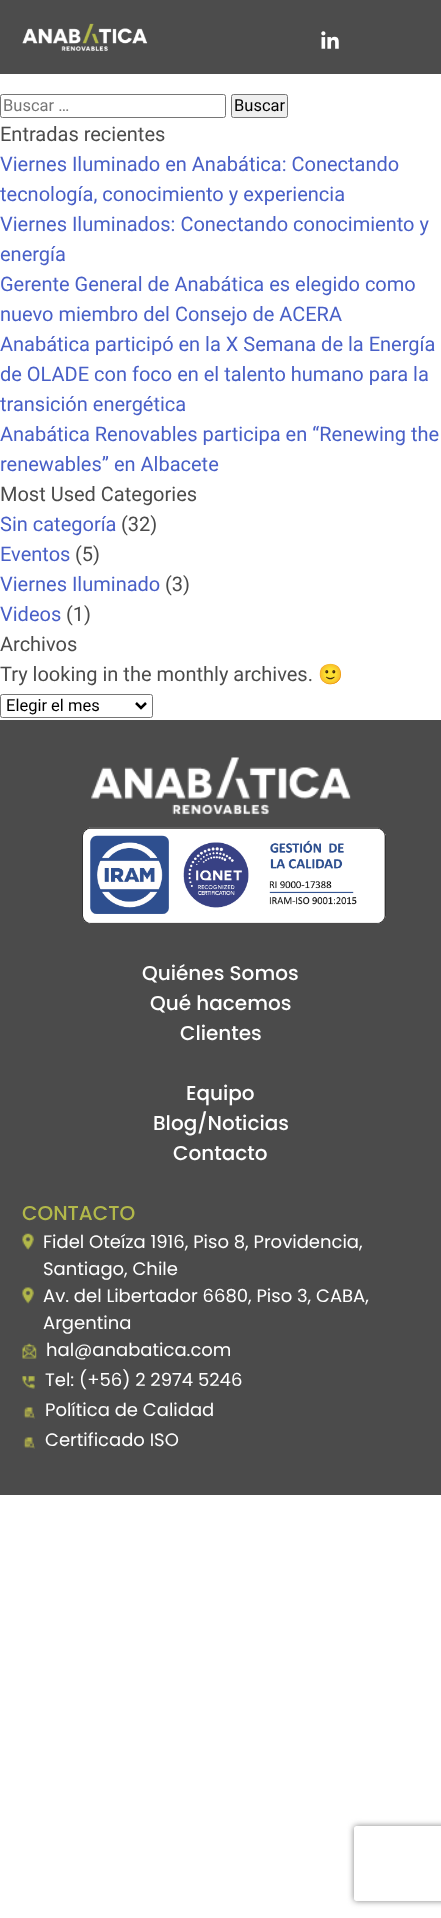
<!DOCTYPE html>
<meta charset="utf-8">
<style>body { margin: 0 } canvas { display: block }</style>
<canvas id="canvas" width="441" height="1918"></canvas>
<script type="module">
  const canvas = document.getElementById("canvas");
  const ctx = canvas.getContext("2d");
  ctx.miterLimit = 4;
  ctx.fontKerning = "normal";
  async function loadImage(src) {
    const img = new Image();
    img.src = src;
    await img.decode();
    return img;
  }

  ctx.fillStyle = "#ffffff";
  ctx.fillRect(0, 0, 441, 1918);
  ctx.fillStyle = "rgba(0, 0, 0, 0.7)";
  ctx.fillRect(0, 0, 441, 74);
  ctx.drawImage(await loadImage("img1.png"), 22, 23, 126, 28);
  ctx.drawImage(await loadImage("img2.png"), 321, 31, 18, 18);
  ctx.beginPath();
  ctx.roundRect(0.5, 94.5, 225, 23, 2);
  ctx.strokeStyle = "#767676";
  ctx.stroke();
  ctx.font = "16.5px Roboto";
  ctx.fillStyle = "#757575";
  ctx.fillText("Buscar …", 3, 111);
  ctx.fillStyle = "#efefef";
  ctx.beginPath();
  ctx.roundRect(231.5, 94.5, 56, 23, 2);
  ctx.fill();
  ctx.stroke();
  ctx.fillStyle = "#000000";
  ctx.fillText("Buscar", 234, 111);
  ctx.font = "20px Roboto";
  ctx.fillStyle = "#4b4b4b";
  ctx.fillText("Entradas recientes", 0, 141);
  ctx.fillStyle = "#485fc7";
  ctx.fillText("Viernes Iluminado en Anabática: Conectando", 0, 171);
  ctx.fillText("tecnología, conocimiento y experiencia", 0, 201);
  ctx.fillText("Viernes Iluminados: Conectando conocimiento y", 0, 231);
  ctx.fillText("energía", 0, 261);
  ctx.fillText("Gerente General de Anabática es elegido como", 0, 291);
  ctx.fillText("nuevo miembro del Consejo de ACERA", 0, 321);
  ctx.fillText("Anabática participó en la X Semana de la Energía", 0, 351);
  ctx.fillText("de OLADE con foco en el talento humano para la", 0, 381);
  ctx.fillText("transición energética", 0, 411);
  ctx.fillText("Anabática Renovables participa en “Renewing the", 0, 441);
  ctx.fillText("renewables” en Albacete", 0, 471);
  ctx.fillStyle = "#4b4b4b";
  ctx.fillText("Most Used Categories", 0, 501);
  ctx.fillStyle = "#485fc7";
  ctx.fillText("Sin categoría", 0, 531);
  ctx.fillStyle = "#4b4b4b";
  ctx.fillText("(32)", 121, 531);
  ctx.fillStyle = "#485fc7";
  ctx.fillText("Eventos", 0, 561);
  ctx.fillStyle = "#4b4b4b";
  ctx.fillText("(5)", 75, 561);
  ctx.fillStyle = "#485fc7";
  ctx.fillText("Viernes Iluminado", 0, 591);
  ctx.fillStyle = "#4b4b4b";
  ctx.fillText("(3)", 165, 591);
  ctx.fillStyle = "#485fc7";
  ctx.fillText("Videos", 0, 621);
  ctx.fillStyle = "#4b4b4b";
  ctx.fillText("(1)", 66, 621);
  ctx.fillText("Archivos", 0, 651);
  ctx.fillText("Try looking in the monthly archives.", 0, 681);
  ctx.font = "20px Noto Color Emoji";
  ctx.fillText("🙂", 318, 681);
  ctx.beginPath();
  ctx.roundRect(0.5, 694.5, 152, 23, 2);
  ctx.stroke();
  ctx.beginPath();
  ctx.moveTo(136, 703);
  ctx.lineTo(141, 708);
  ctx.lineTo(146, 703);
  ctx.strokeStyle = "#000000";
  ctx.lineWidth = 2.5;
  ctx.stroke();
  ctx.font = "16.5px Roboto";
  ctx.fillStyle = "#000000";
  ctx.fillText("Elegir el mes", 6, 711);
  ctx.fillStyle = "#4b4b4b";
  ctx.fillRect(0, 720, 441, 775);
  ctx.drawImage(await loadImage("img3.png"), 91, 757, 260, 58);
  ctx.drawImage(await loadImage("img4.png"), 82, 827, 304, 97);
  ctx.font = "500 20px Poppins";
  ctx.fillStyle = "#ffffff";
  ctx.fillText("Quiénes Somos", 142, 980);
  ctx.fillText("Qué hacemos", 150, 1010);
  ctx.fillText("Clientes", 180, 1040);
  ctx.fillText("Equipo", 186, 1100);
  ctx.fillText("Blog/Noticias", 153, 1130);
  ctx.fillText("Contacto", 173, 1160);
  ctx.fillStyle = "#b2b84a";
  ctx.fillText("CONTACTO", 22, 1220);
  ctx.drawImage(await loadImage("img5.png"), 22, 1233, 12, 17);
  ctx.font = "18px Poppins";
  ctx.fillStyle = "#ffffff";
  ctx.fillText("Fidel Oteíza 1916, Piso 8, Providencia,", 43, 1248);
  ctx.fillText("Santiago, Chile", 43, 1275);
  ctx.drawImage(await loadImage("img6.png"), 22, 1287, 12, 17);
  ctx.fillText("Av. del Libertador 6680, Piso 3, CABA,", 43, 1302);
  ctx.fillText("Argentina", 43, 1329);
  ctx.drawImage(await loadImage("img7.png"), 22, 1343, 15, 16);
  ctx.fillText("hal@anabatica.com", 46, 1356);
  ctx.drawImage(await loadImage("img8.png"), 22, 1376, 13, 13);
  ctx.fillText("Tel: (+56) 2 2974 5246", 45, 1386);
  ctx.drawImage(await loadImage("img9.png"), 23, 1407, 12, 12);
  ctx.fillText("Política de Calidad", 45, 1416);
  ctx.drawImage(await loadImage("img9.png"), 23, 1437, 12, 12);
  ctx.fillText("Certificado ISO", 45, 1446);
  ctx.save();
  ctx.beginPath();
  ctx.moveTo(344, 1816);
  ctx.lineTo(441, 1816);
  ctx.lineTo(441, 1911);
  ctx.lineTo(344, 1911);
  ctx.closePath();
  ctx.moveTo(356.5, 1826);
  ctx.lineTo(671.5, 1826);
  ctx.bezierCurveTo(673, 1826, 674, 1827, 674, 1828.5);
  ctx.lineTo(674, 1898.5);
  ctx.bezierCurveTo(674, 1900, 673, 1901, 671.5, 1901);
  ctx.lineTo(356.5, 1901);
  ctx.bezierCurveTo(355, 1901, 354, 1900, 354, 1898.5);
  ctx.lineTo(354, 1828.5);
  ctx.bezierCurveTo(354, 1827, 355, 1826, 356.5, 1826);
  ctx.closePath();
  ctx.clip("evenodd");
  ctx.fillStyle = "#808080";
  ctx.filter = "blur(3px)";
  ctx.beginPath();
  ctx.roundRect(354, 1826, 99, 75, 2.5);
  ctx.fill();
  ctx.filter = "none";
  ctx.restore();
</script>
